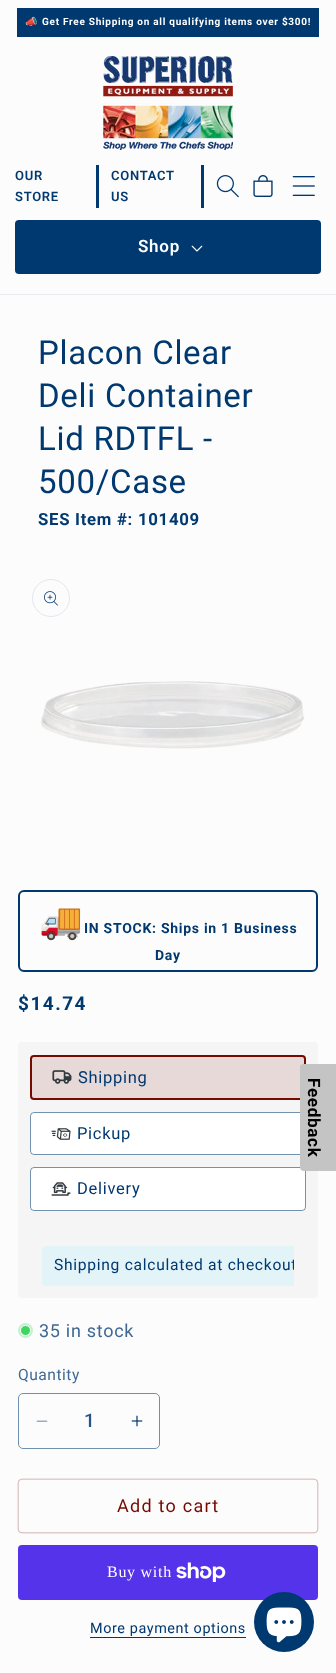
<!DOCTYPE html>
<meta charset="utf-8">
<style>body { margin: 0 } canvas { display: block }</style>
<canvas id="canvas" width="336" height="1673"></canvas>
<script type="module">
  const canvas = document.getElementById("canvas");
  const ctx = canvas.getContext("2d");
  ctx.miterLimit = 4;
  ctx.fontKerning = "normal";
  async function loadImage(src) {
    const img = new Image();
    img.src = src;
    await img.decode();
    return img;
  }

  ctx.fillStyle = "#fcfcfc";
  ctx.fillRect(0, 0, 336, 1673);
  ctx.fillStyle = "#003870";
  ctx.fillRect(17, 8, 302, 29);
  ctx.letterSpacing = "0.72px";
  ctx.font = "bold 10px Noto Color Emoji";
  ctx.fillStyle = "#ffffff";
  ctx.fillText("📣", 25, 25);
  ctx.font = "bold 10px Roboto";
  ctx.fillText("Get Free Shipping on all qualifying items over $300!", 42, 25);
  ctx.fillStyle = "#e8ecf1";
  ctx.fillRect(0, 294, 336, 1);
  ctx.drawImage(await loadImage("img1.png"), 103, 56, 130, 94);
  ctx.fillStyle = "#003870";
  ctx.fillRect(96, 165, 3, 43);
  ctx.font = "600 13px Roboto";
  ctx.fillText("OUR", 15, 180);
  ctx.fillText("STORE", 15, 201);
  ctx.fillRect(201, 165, 3, 43);
  ctx.fillText("CONTACT", 111, 180);
  ctx.fillText("US", 111, 201);
  ctx.drawImage(await loadImage("img2.png"), 216, 175, 23, 23);
  ctx.drawImage(await loadImage("img3.png"), 253, 175, 20, 22);
  ctx.drawImage(await loadImage("img4.png"), 292, 176, 23, 20);
  ctx.beginPath();
  ctx.roundRect(15, 220, 306, 54, 4);
  ctx.fill();
  ctx.font = "600 17px Roboto";
  ctx.fillStyle = "#ffffff";
  ctx.fillText("Shop", 138, 252);
  ctx.drawImage(await loadImage("img5.png"), 191, 245, 12, 7);
  ctx.letterSpacing = "0.7px";
  ctx.font = "33px Roboto";
  ctx.fillStyle = "#003870";
  ctx.fillText("Placon Clear", 38, 364);
  ctx.fillText("Deli Container", 38, 407);
  ctx.fillText("Lid RDTFL -", 38, 450);
  ctx.fillText("500/Case", 38, 493);
  ctx.letterSpacing = "0.72px";
  ctx.font = "bold 16.75px Roboto";
  ctx.fillText("SES Item #: 101409", 38, 525);
  ctx.beginPath();
  ctx.arc(51, 598, 18.5, 0, Math.PI * 2);
  ctx.strokeStyle = "#e3e8ee";
  ctx.stroke();
  ctx.drawImage(await loadImage("img6.png"), 44, 591, 14, 15);
  ctx.drawImage(await loadImage("img7.png"), 41, 681, 264, 68);
  ctx.beginPath();
  ctx.roundRect(19, 891, 298, 80, 5);
  ctx.strokeStyle = "#003870";
  ctx.lineWidth = 2;
  ctx.stroke();
  ctx.font = "bold 35px Noto Color Emoji";
  ctx.fillText("🚚", 39, 933);
  ctx.font = "bold 14px Roboto";
  ctx.fillText("IN STOCK: Ships in 1 Business", 84, 933);
  ctx.fillText("Day", 155, 960);
  ctx.letterSpacing = "1.5px";
  ctx.font = "bold 19px Roboto";
  ctx.fillText("$14.74", 18, 1010);
  ctx.fillStyle = "#f5f5f5";
  ctx.beginPath();
  ctx.roundRect(18, 1042, 300, 256, 4);
  ctx.fill();
  ctx.fillStyle = "#e6d9d8";
  ctx.beginPath();
  ctx.roundRect(31, 1056, 274, 43, 3);
  ctx.fill();
  ctx.strokeStyle = "#750b00";
  ctx.stroke();
  ctx.drawImage(await loadImage("img8.png"), 52, 1070, 20, 14);
  ctx.letterSpacing = "0.7px";
  ctx.font = "16.5px Roboto";
  ctx.fillStyle = "#003870";
  ctx.fillText("Shipping", 78, 1083);
  ctx.fillStyle = "#ffffff";
  ctx.beginPath();
  ctx.roundRect(30, 1112, 276, 43, 4);
  ctx.fill();
  ctx.beginPath();
  ctx.roundRect(30.5, 1112.5, 275, 42, 3.5);
  ctx.strokeStyle = "rgba(0, 56, 112, 0.55)";
  ctx.lineWidth = 1;
  ctx.stroke();
  ctx.drawImage(await loadImage("img9.png"), 51, 1128, 20, 12);
  ctx.fillStyle = "#003870";
  ctx.fillText("Pickup", 77, 1139);
  ctx.fillStyle = "#ffffff";
  ctx.beginPath();
  ctx.roundRect(30, 1167, 276, 44, 4);
  ctx.fill();
  ctx.beginPath();
  ctx.roundRect(30.5, 1167.5, 275, 43, 3.5);
  ctx.stroke();
  ctx.drawImage(await loadImage("img10.png"), 51, 1182, 20, 14);
  ctx.fillStyle = "#003870";
  ctx.fillText("Delivery", 77, 1194);
  ctx.fillStyle = "#e3f4f8";
  ctx.beginPath();
  ctx.roundRect(42, 1246, 252, 40, [4, 0, 0, 4]);
  ctx.fill();
  ctx.save();
  ctx.beginPath();
  ctx.rect(42, 1246, 252, 40);
  ctx.clip();
  ctx.letterSpacing = "0.72px";
  ctx.font = "15.6px Roboto";
  ctx.fillStyle = "#003870";
  ctx.fillText("Shipping calculated at checkout", 54, 1270);
  ctx.restore();
  ctx.fillStyle = "#c3f1cd";
  ctx.beginPath();
  ctx.arc(25.5, 1330.5, 7.5, 0, Math.PI * 2);
  ctx.fill();
  ctx.fillStyle = "#3ed660";
  ctx.beginPath();
  ctx.arc(25.5, 1330.5, 5, 0, Math.PI * 2);
  ctx.fill();
  ctx.strokeStyle = "#ffffff";
  ctx.stroke();
  ctx.letterSpacing = "0.72px";
  ctx.font = "18px Roboto";
  ctx.fillStyle = "#3f6993";
  ctx.fillText("35 in stock", 39, 1337);
  ctx.letterSpacing = "0.5px";
  ctx.font = "15.6px Roboto";
  ctx.fillText("Quantity", 18, 1380);
  ctx.drawImage(await loadImage("img11.png"), 36, 1420, 12, 2);
  ctx.drawImage(await loadImage("img12.png"), 131, 1415, 12, 12);
  ctx.beginPath();
  ctx.roundRect(18.5, 1393.5, 141, 55, 4.5);
  ctx.strokeStyle = "#7190af";
  ctx.stroke();
  ctx.letterSpacing = "0px";
  ctx.font = "500 19px Roboto";
  ctx.fillStyle = "#265585";
  ctx.fillText("1", 84, 1427);
  ctx.beginPath();
  ctx.roundRect(18.15, 1479.15, 299.7, 53.7, 3.85);
  ctx.strokeStyle = "#750b00";
  ctx.lineWidth = 0.3;
  ctx.stroke();
  ctx.letterSpacing = "1.25px";
  ctx.font = "18px Roboto";
  ctx.fillStyle = "#750b00";
  ctx.fillText("Add to cart", 117, 1512);
  ctx.fillStyle = "#5433eb";
  ctx.beginPath();
  ctx.roundRect(18, 1545, 300, 55, 4);
  ctx.fill();
  ctx.letterSpacing = "0.72px";
  ctx.font = "16px Liberation Serif";
  ctx.fillStyle = "#ffffff";
  ctx.fillText("Buy with", 107, 1577);
  ctx.drawImage(await loadImage("img13.png"), 176, 1562, 50, 20);
  ctx.letterSpacing = "0.6px";
  ctx.font = "14.4px Roboto";
  ctx.fillStyle = "#003870";
  ctx.fillText("More payment options", 90, 1633);
  ctx.fillRect(90, 1637, 156, 1);
  ctx.fillStyle = "#c4c4c4";
  ctx.beginPath();
  ctx.moveTo(336, 1064);
  ctx.lineTo(336, 1171);
  ctx.lineTo(304, 1171);
  ctx.bezierCurveTo(301, 1171, 300, 1169, 300, 1167);
  ctx.lineTo(300, 1068);
  ctx.bezierCurveTo(300, 1065, 301, 1064, 304, 1064);
  ctx.closePath();
  ctx.fill();
  ctx.letterSpacing = "0.72px";
  ctx.font = "bold 17px Roboto";
  ctx.fillStyle = "#000000";
  ctx.save();
  ctx.translate(308, 1078);
  ctx.rotate(90 * Math.PI / 180);
  ctx.fillText("Feedback", 0, 0);
  ctx.restore();
  ctx.fillStyle = "#003870";
  ctx.beginPath();
  ctx.arc(284, 1622, 30, 0, Math.PI * 2);
  ctx.fill();
  ctx.drawImage(await loadImage("img14.png"), 266, 1607, 36, 36);
</script>
